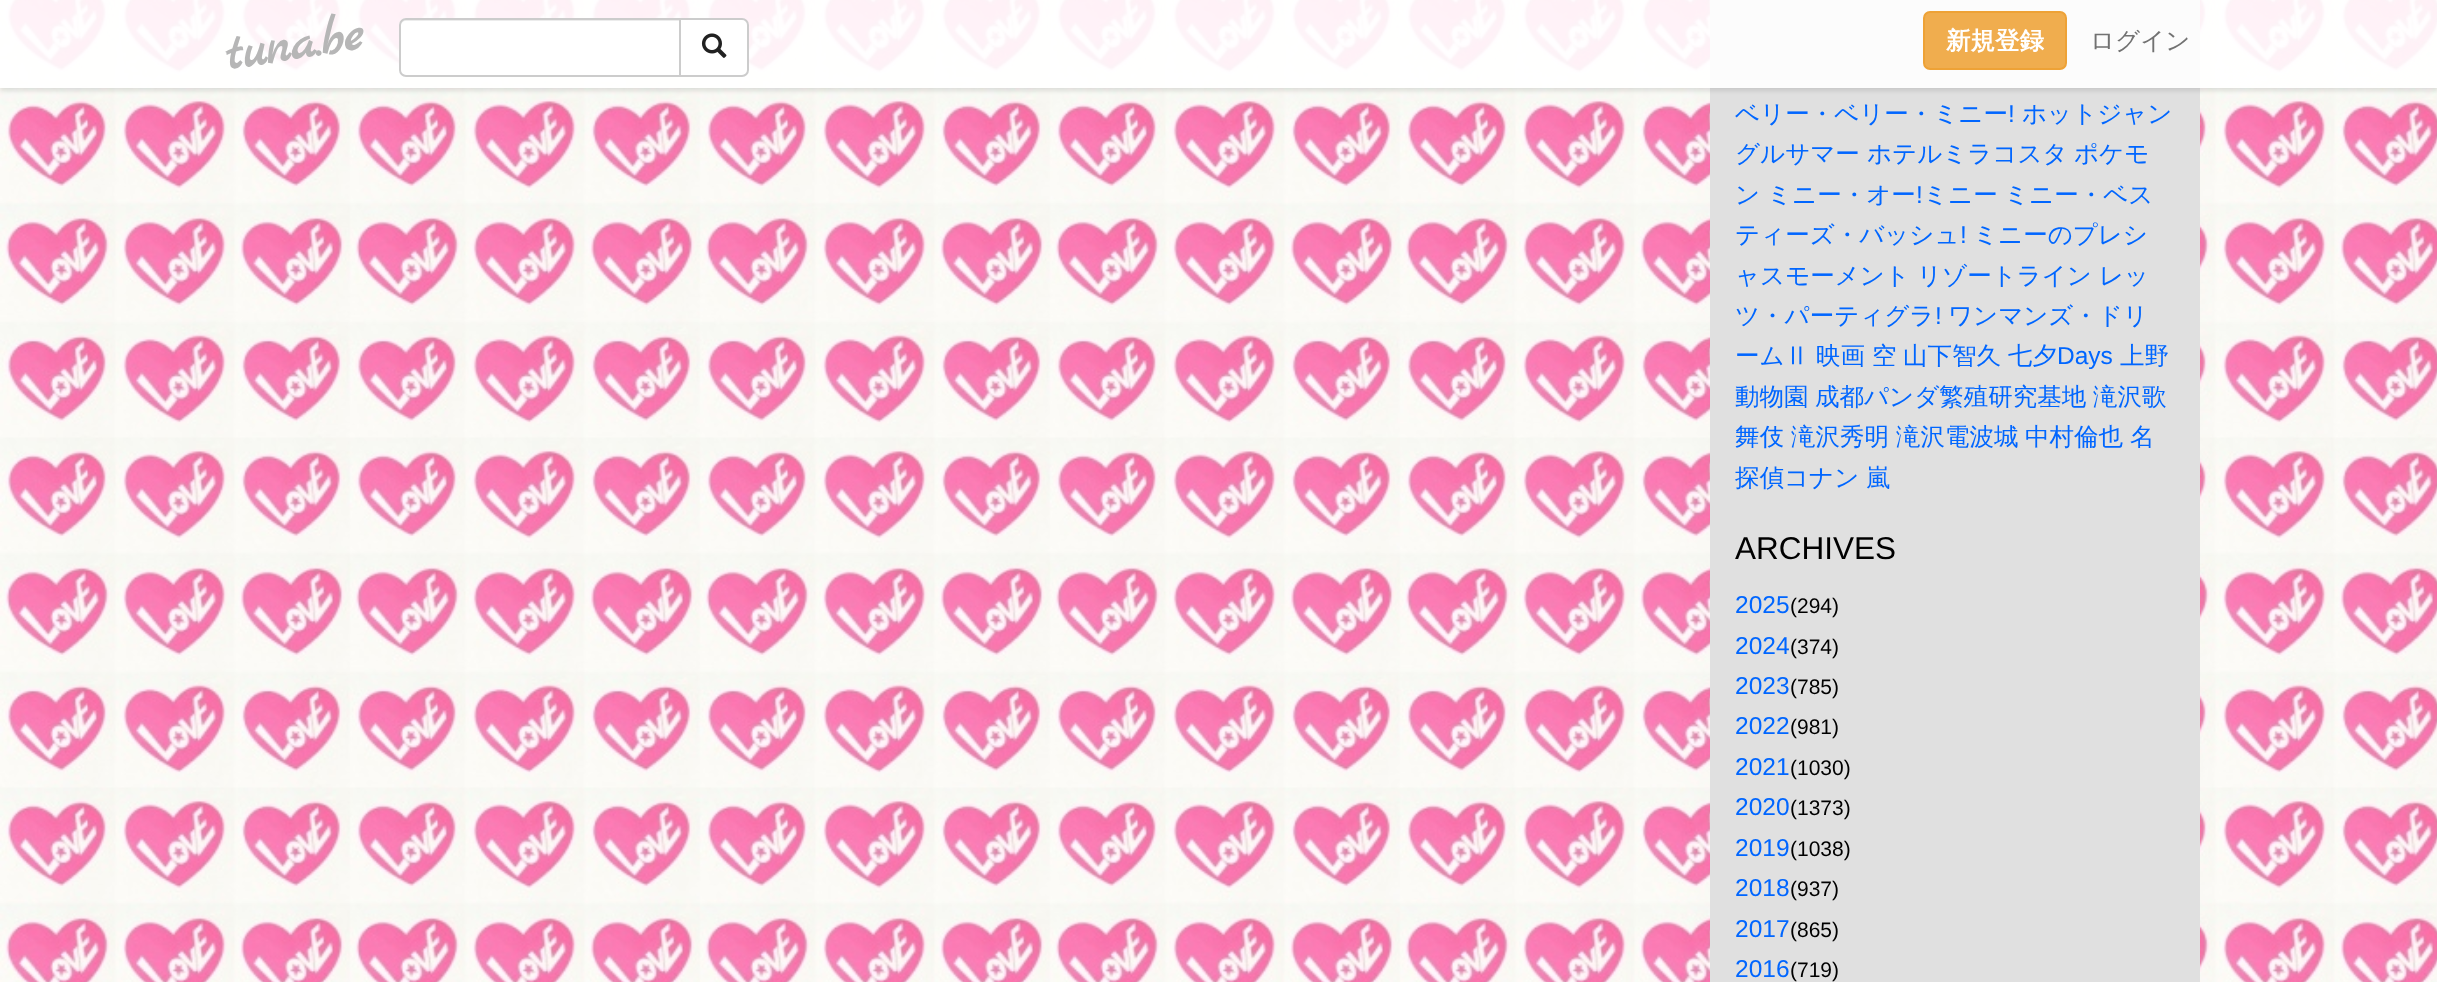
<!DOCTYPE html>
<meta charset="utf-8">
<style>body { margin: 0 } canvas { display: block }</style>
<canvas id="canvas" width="2437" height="982"></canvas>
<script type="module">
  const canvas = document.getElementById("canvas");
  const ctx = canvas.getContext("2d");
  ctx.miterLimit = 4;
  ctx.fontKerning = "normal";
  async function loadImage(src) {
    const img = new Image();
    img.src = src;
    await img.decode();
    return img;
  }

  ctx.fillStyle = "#ffffff";
  ctx.fillRect(0, 0, 2437, 982);
  ctx.drawImage(await loadImage("img1.png"), 0, 0, 2437, 982);
  ctx.fillStyle = "#e0e0e0";
  ctx.fillRect(1710, 0, 490, 982);
  ctx.save();
  ctx.beginPath();
  ctx.moveTo(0, 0);
  ctx.lineTo(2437, 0);
  ctx.lineTo(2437, 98);
  ctx.lineTo(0, 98);
  ctx.closePath();
  ctx.moveTo(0, 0);
  ctx.lineTo(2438, 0);
  ctx.lineTo(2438, 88);
  ctx.lineTo(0, 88);
  ctx.closePath();
  ctx.clip("evenodd");
  ctx.fillStyle = "rgba(0, 0, 0, 0.1)";
  ctx.filter = "blur(2px)";
  ctx.beginPath();
  ctx.rect(0, 4, 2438, 87);
  ctx.fill();
  ctx.filter = "none";
  ctx.restore();
  ctx.fillStyle = "rgba(255, 255, 255, 0.9)";
  ctx.fillRect(0, 0, 2437, 88);
  ctx.font = "bold 52.5px Marck Script";
  ctx.fillStyle = "#b6b6b6";
  ctx.save();
  ctx.translate(228, 70);
  ctx.rotate(-9 * Math.PI / 180);
  ctx.fillText("tuna.be", 0, 0);
  ctx.restore();
  ctx.fillStyle = "#ffffff";
  ctx.beginPath();
  ctx.roundRect(399, 18, 282, 59, [7, 0, 0, 7]);
  ctx.fill();
  ctx.fillStyle = "#ececec";
  ctx.beginPath();
  ctx.moveTo(406, 21);
  ctx.lineTo(679, 21);
  ctx.lineTo(679, 19);
  ctx.lineTo(405, 19);
  ctx.bezierCurveTo(401, 20, 401, 23, 401, 26);
  ctx.bezierCurveTo(401, 23, 403, 21, 406, 21);
  ctx.closePath();
  ctx.fill();
  ctx.beginPath();
  ctx.roundRect(400, 19, 280, 57, [6, 0, 0, 6]);
  ctx.strokeStyle = "#cccccc";
  ctx.lineWidth = 2;
  ctx.stroke();
  ctx.fillStyle = "#ffffff";
  ctx.beginPath();
  ctx.roundRect(680, 19, 68, 57, [0, 6, 6, 0]);
  ctx.fill();
  ctx.stroke();
  ctx.drawImage(await loadImage("img2.png"), 701, 33, 26, 25);
  ctx.fillStyle = "#f0ad4e";
  ctx.beginPath();
  ctx.roundRect(1924, 12, 142, 57, 6);
  ctx.fill();
  ctx.strokeStyle = "#eea236";
  ctx.stroke();
  ctx.font = "bold 24.5px WenQuanYi Zen Hei";
  ctx.fillStyle = "#ffffff";
  ctx.fillText("新規登録", 1946, 49);
  ctx.font = "500 24.5px WenQuanYi Zen Hei";
  ctx.fillStyle = "#727272";
  ctx.fillText("ログイン", 2090, 49);
  ctx.fillStyle = "#0066ff";
  ctx.fillText("ベリー・ベリー・ミニー", 1735, 122);
  ctx.font = "24.5px Liberation Sans";
  ctx.fillText("!", 2008, 122);
  ctx.font = "500 24.5px WenQuanYi Zen Hei";
  ctx.fillText("ホットジャン", 2022, 122);
  ctx.fillText("グルサマー", 1735, 162);
  ctx.fillText("ホテルミラコスタ", 1867, 162);
  ctx.fillText("ポケモ", 2074, 162);
  ctx.fillText("ン", 1735, 203);
  ctx.fillText("ミニー・オー", 1767, 203);
  ctx.font = "24.5px Liberation Sans";
  ctx.fillText("!", 1916, 203);
  ctx.font = "500 24.5px WenQuanYi Zen Hei";
  ctx.fillText("ミニー", 1923, 203);
  ctx.fillText("ミニー・ベス", 2004, 203);
  ctx.fillText("ティーズ・バッシュ", 1735, 243);
  ctx.font = "24.5px Liberation Sans";
  ctx.fillText("!", 1960, 243);
  ctx.font = "500 24.5px WenQuanYi Zen Hei";
  ctx.fillText("ミニーのプレシ", 1973, 243);
  ctx.fillText("ャスモーメント", 1735, 284);
  ctx.fillText("リゾートライン", 1917, 284);
  ctx.fillText("レッ", 2099, 284);
  ctx.fillText("ツ・パーティグラ", 1735, 324);
  ctx.font = "24.5px Liberation Sans";
  ctx.fillText("!", 1935, 324);
  ctx.font = "500 24.5px WenQuanYi Zen Hei";
  ctx.fillText("ワンマンズ・ドリ", 1948, 324);
  ctx.fillText("ームⅡ", 1735, 364);
  ctx.fillText("映画", 1816, 364);
  ctx.fillText("空", 1872, 364);
  ctx.fillText("山下智久", 1903, 364);
  ctx.fillText("七夕", 2008, 364);
  ctx.font = "24.5px Liberation Sans";
  ctx.fillText("Days", 2057, 364);
  ctx.font = "500 24.5px WenQuanYi Zen Hei";
  ctx.fillText("上野", 2120, 364);
  ctx.fillText("動物園", 1735, 405);
  ctx.fillText("成都パンダ繁殖研究基地", 1815, 405);
  ctx.fillText("滝沢歌", 2093, 405);
  ctx.fillText("舞伎", 1735, 445);
  ctx.fillText("滝沢秀明", 1791, 445);
  ctx.fillText("滝沢電波城", 1896, 445);
  ctx.fillText("中村倫也", 2025, 445);
  ctx.fillText("名", 2130, 445);
  ctx.fillText("探偵コナン", 1735, 486);
  ctx.fillText("嵐", 1866, 486);
  ctx.font = "31.5px Liberation Sans";
  ctx.fillStyle = "#000000";
  ctx.fillText("ARCHIVES", 1735, 559);
  ctx.font = "24.5px Liberation Sans";
  ctx.fillStyle = "#0066ff";
  ctx.fillText("2025", 1735, 613);
  ctx.font = "21px Liberation Sans";
  ctx.fillStyle = "#000000";
  ctx.fillText("(294)", 1790, 613);
  ctx.font = "24.5px Liberation Sans";
  ctx.fillStyle = "#0066ff";
  ctx.fillText("2024", 1735, 654);
  ctx.font = "21px Liberation Sans";
  ctx.fillStyle = "#000000";
  ctx.fillText("(374)", 1790, 654);
  ctx.font = "24.5px Liberation Sans";
  ctx.fillStyle = "#0066ff";
  ctx.fillText("2023", 1735, 694);
  ctx.font = "21px Liberation Sans";
  ctx.fillStyle = "#000000";
  ctx.fillText("(785)", 1790, 694);
  ctx.font = "24.5px Liberation Sans";
  ctx.fillStyle = "#0066ff";
  ctx.fillText("2022", 1735, 734);
  ctx.font = "21px Liberation Sans";
  ctx.fillStyle = "#000000";
  ctx.fillText("(981)", 1790, 734);
  ctx.font = "24.5px Liberation Sans";
  ctx.fillStyle = "#0066ff";
  ctx.fillText("2021", 1735, 775);
  ctx.font = "21px Liberation Sans";
  ctx.fillStyle = "#000000";
  ctx.fillText("(1030)", 1790, 775);
  ctx.font = "24.5px Liberation Sans";
  ctx.fillStyle = "#0066ff";
  ctx.fillText("2020", 1735, 815);
  ctx.font = "21px Liberation Sans";
  ctx.fillStyle = "#000000";
  ctx.fillText("(1373)", 1790, 815);
  ctx.font = "24.5px Liberation Sans";
  ctx.fillStyle = "#0066ff";
  ctx.fillText("2019", 1735, 856);
  ctx.font = "21px Liberation Sans";
  ctx.fillStyle = "#000000";
  ctx.fillText("(1038)", 1790, 856);
  ctx.font = "24.5px Liberation Sans";
  ctx.fillStyle = "#0066ff";
  ctx.fillText("2018", 1735, 896);
  ctx.font = "21px Liberation Sans";
  ctx.fillStyle = "#000000";
  ctx.fillText("(937)", 1790, 896);
  ctx.font = "24.5px Liberation Sans";
  ctx.fillStyle = "#0066ff";
  ctx.fillText("2017", 1735, 937);
  ctx.font = "21px Liberation Sans";
  ctx.fillStyle = "#000000";
  ctx.fillText("(865)", 1790, 937);
  ctx.font = "24.5px Liberation Sans";
  ctx.fillStyle = "#0066ff";
  ctx.fillText("2016", 1735, 977);
  ctx.font = "21px Liberation Sans";
  ctx.fillStyle = "#000000";
  ctx.fillText("(719)", 1790, 977);
</script>
